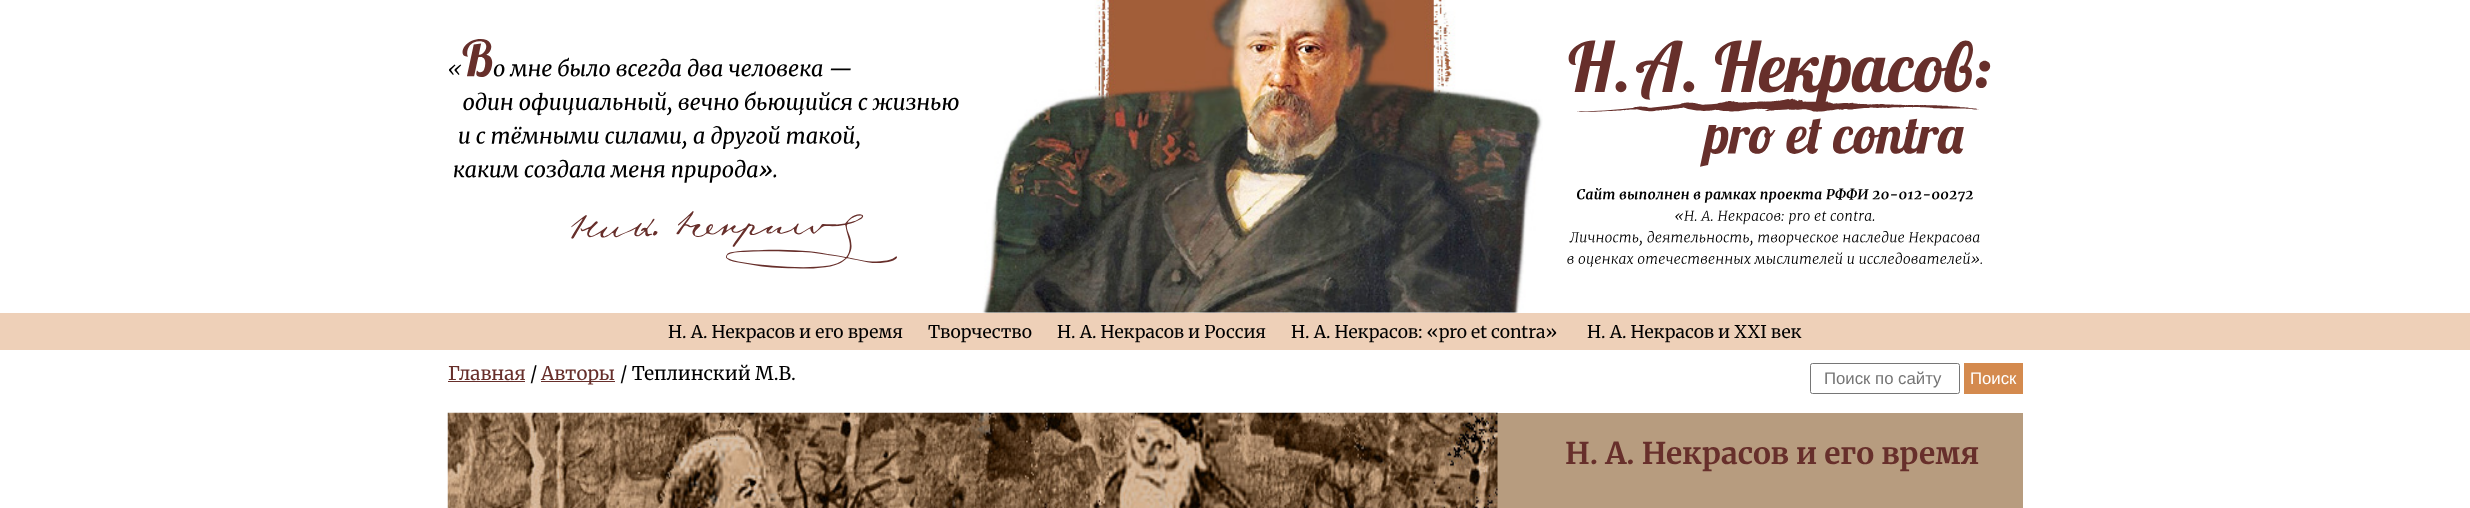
<!DOCTYPE html>
<meta charset="utf-8">
<style>body { margin: 0 } canvas { display: block }</style>
<canvas id="canvas" width="2470" height="508"></canvas>
<script type="module">
  const canvas = document.getElementById("canvas");
  const ctx = canvas.getContext("2d");
  ctx.miterLimit = 4;
  ctx.fontKerning = "normal";
  async function loadImage(src) {
    const img = new Image();
    img.src = src;
    await img.decode();
    return img;
  }

  ctx.fillStyle = "#ffffff";
  ctx.fillRect(0, 0, 2470, 508);
  ctx.drawImage(await loadImage("img1.png"), 449, 39, 510, 230);
  ctx.drawImage(await loadImage("img2.png"), 982, 0, 561, 313);
  ctx.drawImage(await loadImage("img3.png"), 1567, 40, 424, 227);
  ctx.fillStyle = "#eed0b8";
  ctx.fillRect(0, 313, 2470, 37);
  ctx.font = "17.5px Merriweather";
  ctx.fillStyle = "#000000";
  ctx.fillText("Н. А. Некрасов и его время", 668, 338);
  ctx.fillText("Творчество", 928, 338);
  ctx.fillText("Н. А. Некрасов и Россия", 1057, 338);
  ctx.fillText("Н. А. Некрасов: «pro et contra»", 1291, 338);
  ctx.fillText("Н. А. Некрасов и XXI век", 1587, 338);
  ctx.font = "18.75px Merriweather";
  ctx.fillStyle = "#672f2b";
  ctx.fillText("Главная", 448, 380);
  ctx.fillRect(448, 381, 77, 1);
  ctx.fillStyle = "#000000";
  ctx.fillText("/", 530, 380);
  ctx.fillStyle = "#672f2b";
  ctx.fillRect(541, 381, 74, 1);
  ctx.fillText("Авторы", 541, 380);
  ctx.fillStyle = "#000000";
  ctx.fillText("/ Теплинский М.В.", 620, 380);
  ctx.beginPath();
  ctx.roundRect(1810.5, 363.5, 149, 30, 2);
  ctx.strokeStyle = "#767676";
  ctx.stroke();
  ctx.font = "16.75px Liberation Sans";
  ctx.fillStyle = "#757575";
  ctx.fillText("Поиск по сайту", 1824, 384);
  ctx.fillStyle = "#d48a4e";
  ctx.fillRect(1964, 363, 59, 31);
  ctx.fillStyle = "#ffffff";
  ctx.fillText("Поиск", 1970, 384);
  ctx.fillStyle = "#b79c7f";
  ctx.fillRect(1497, 413, 526, 95);
  ctx.drawImage(await loadImage("img4.png"), 447, 412, 1051, 96);
  ctx.font = "bold 30px Merriweather";
  ctx.fillStyle = "#672f2b";
  ctx.fillText("Н. А. Некрасов и его время", 1565, 464);
</script>
